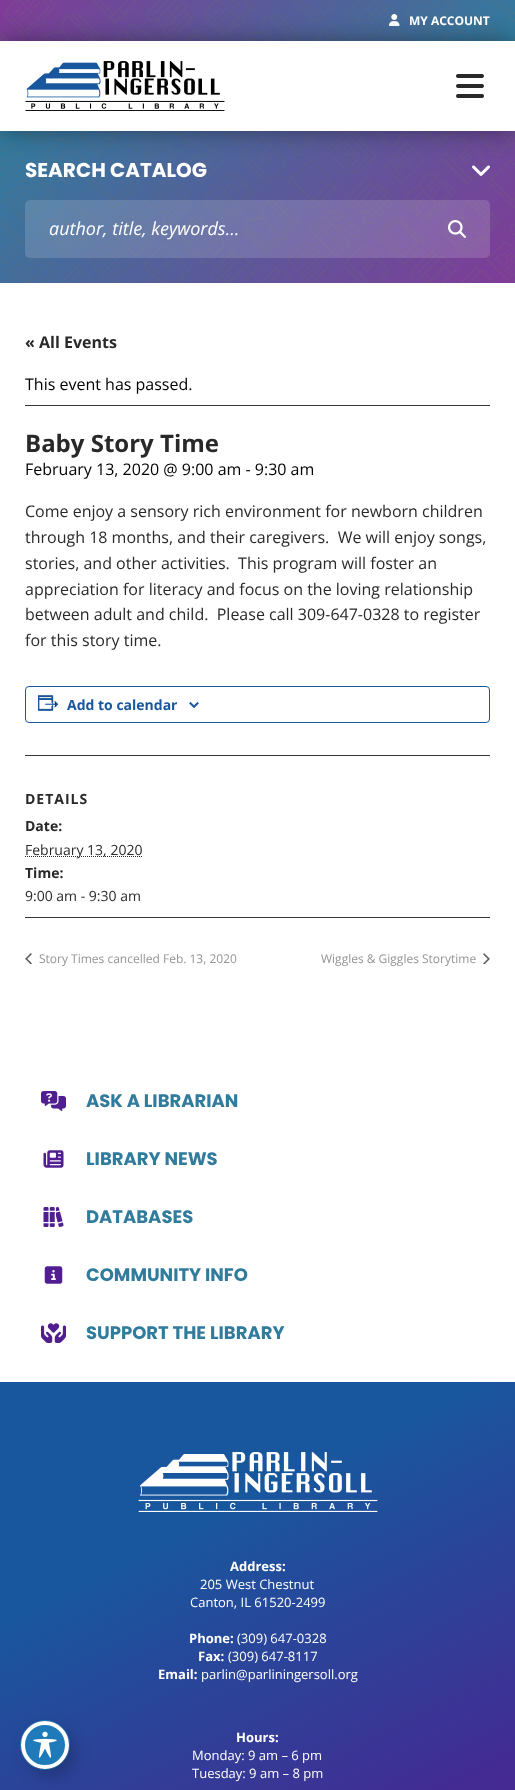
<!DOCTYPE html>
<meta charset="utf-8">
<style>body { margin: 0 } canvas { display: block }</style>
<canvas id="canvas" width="515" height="1790"></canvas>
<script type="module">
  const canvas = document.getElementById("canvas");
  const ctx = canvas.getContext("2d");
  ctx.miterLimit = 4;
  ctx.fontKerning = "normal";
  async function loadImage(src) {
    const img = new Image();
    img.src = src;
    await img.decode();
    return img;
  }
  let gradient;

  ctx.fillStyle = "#ffffff";
  ctx.fillRect(0, 0, 515, 1790);
  gradient = ctx.createLinearGradient(405, 158, 110, -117);
  gradient.addColorStop(0, "#317b9d");
  gradient.addColorStop(1, "#803b98");
  ctx.fillStyle = gradient;
  ctx.fillRect(0, 0, 515, 41);
  ctx.drawImage(await loadImage("img3.png"), 0, 0, 515, 41);
  ctx.drawImage(await loadImage("img4.png"), 389, 14, 11, 12);
  gradient = ctx.createLinearGradient(82, 43, 433, 371);
  gradient.addColorStop(0, "#317b9d");
  gradient.addColorStop(1, "#803b98");
  ctx.fillStyle = gradient;
  ctx.fillRect(0, 131, 515, 152);
  ctx.drawImage(await loadImage("img5.png"), 0, 131, 515, 152);
  ctx.drawImage(await loadImage("img6.png"), 472, 165, 18, 11);
  ctx.fillStyle = "rgba(0, 0, 0, 0.4)";
  ctx.filter = "blur(12px)";
  ctx.beginPath();
  ctx.rect(0, 41, 515, 90);
  ctx.fill();
  ctx.filter = "none";
  ctx.fillStyle = "#ffffff";
  ctx.fillRect(0, 41, 515, 90);
  ctx.drawImage(await loadImage("img1.png"), 25, 61, 200, 50);
  ctx.drawImage(await loadImage("img2.png"), 456, 74, 28, 24);
  ctx.font = "bold 12px Open Sans";
  ctx.fillText("MY ACCOUNT", 409, 25);
  ctx.font = "bold 20px Poppins";
  ctx.fillText("SEARCH CATALOG", 25, 177);
  ctx.fillStyle = "rgba(255, 255, 255, 0.15)";
  ctx.beginPath();
  ctx.roundRect(25, 200, 465, 58, 5);
  ctx.fill();
  ctx.font = "italic 18px Open Sans";
  ctx.fillStyle = "#ffffff";
  ctx.fillText("author, title, keywords…", 49, 235);
  ctx.drawImage(await loadImage("img7.png"), 448, 220, 18, 18);
  ctx.font = "bold 16px Open Sans";
  ctx.fillStyle = "#292929";
  ctx.fillText("« All Events", 25, 348);
  ctx.fillStyle = "#363636";
  ctx.fillRect(25, 405, 465, 1);
  ctx.font = "16px Open Sans";
  ctx.fillStyle = "#000000";
  ctx.fillText("This event has passed.", 25, 390);
  ctx.font = "bold 24px Open Sans";
  ctx.fillStyle = "#292929";
  ctx.fillText("Baby Story Time", 25, 452);
  ctx.font = "16px Open Sans";
  ctx.fillStyle = "#000000";
  ctx.fillText("February 13, 2020 @ 9:00 am - 9:30 am", 25, 475);
  ctx.fillStyle = "#292929";
  ctx.fillText("Come enjoy a sensory rich environment for newborn children", 25, 517);
  ctx.fillText("through 18 months, and their caregivers.  We will enjoy songs,", 25, 543);
  ctx.fillText("stories, and other activities.  This program will foster an", 25, 569);
  ctx.fillText("appreciation for literacy and focus on the loving relationship", 25, 595);
  ctx.fillText("between adult and child.  Please call 309-647-0328 to register", 25, 620);
  ctx.fillText("for this story time.", 25, 646);
  ctx.beginPath();
  ctx.roundRect(25.5, 686.5, 464, 36, 3.5);
  ctx.strokeStyle = "#18579e";
  ctx.stroke();
  ctx.drawImage(await loadImage("img8.png"), 38, 695, 21, 16);
  ctx.font = "bold 14px Open Sans";
  ctx.fillStyle = "#18579e";
  ctx.fillText("Add to calendar", 67, 710);
  ctx.drawImage(await loadImage("img9.png"), 189, 702, 10, 6);
  ctx.fillStyle = "#363636";
  ctx.fillRect(25, 755, 465, 1);
  ctx.letterSpacing = "1px";
  ctx.fillStyle = "#292929";
  ctx.fillText("DETAILS", 25, 804);
  ctx.letterSpacing = "0px";
  ctx.fillText("Date:", 25, 831);
  ctx.beginPath();
  ctx.moveTo(25, 856.5);
  ctx.lineTo(142.5, 856.5);
  ctx.strokeStyle = "#292929";
  ctx.setLineDash([1, 1]);
  ctx.stroke();
  ctx.font = "14px Open Sans";
  ctx.fillText("February 13, 2020", 25, 855);
  ctx.font = "bold 14px Open Sans";
  ctx.fillText("Time:", 25, 878);
  ctx.font = "14px Open Sans";
  ctx.fillText("9:00 am - 9:30 am", 25, 901);
  ctx.fillStyle = "#363636";
  ctx.fillRect(25, 917, 465, 1);
  ctx.drawImage(await loadImage("img10.png"), 25, 953, 7, 11);
  ctx.font = "12px Open Sans";
  ctx.fillStyle = "#949494";
  ctx.fillText("Story Times cancelled Feb. 13, 2020", 39, 963);
  ctx.fillText("Wiggles & Giggles Storytime", 321, 963);
  ctx.drawImage(await loadImage("img11.png"), 483, 953, 7, 11);
  ctx.drawImage(await loadImage("img12.png"), 41, 1091, 25, 20);
  ctx.font = "bold 18px Poppins";
  ctx.fillStyle = "#317b9d";
  ctx.fillText("ASK A LIBRARIAN", 86, 1107);
  ctx.drawImage(await loadImage("img13.png"), 43, 1150, 21, 18);
  ctx.fillText("LIBRARY NEWS", 86, 1165);
  ctx.drawImage(await loadImage("img14.png"), 43, 1207, 21, 20);
  ctx.fillText("DATABASES", 86, 1223);
  ctx.drawImage(await loadImage("img15.png"), 44, 1266, 19, 18);
  ctx.fillText("COMMUNITY INFO", 86, 1281);
  ctx.drawImage(await loadImage("img16.png"), 41, 1323, 25, 20);
  ctx.fillText("SUPPORT THE LIBRARY", 86, 1339);
  gradient = ctx.createLinearGradient(437, 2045, 78, 1342);
  gradient.addColorStop(0.14, "#501e90");
  gradient.addColorStop(0.73, "#18579e");
  ctx.fillStyle = gradient;
  ctx.fillRect(0, 1382, 515, 408);
  ctx.drawImage(await loadImage("img17.png"), 138, 1452, 240, 60);
  ctx.font = "bold 13px Open Sans";
  ctx.fillStyle = "#ffffff";
  ctx.fillText("Address:", 230, 1571);
  ctx.font = "13px Open Sans";
  ctx.fillText("205 West Chestnut", 200, 1589);
  ctx.fillText("Canton, IL 61520-2499", 190, 1607);
  ctx.font = "bold 13px Open Sans";
  ctx.fillText("Phone:", 189, 1643);
  ctx.font = "13px Open Sans";
  ctx.fillText("(309) 647-0328", 237, 1643);
  ctx.font = "bold 13px Open Sans";
  ctx.fillText("Fax:", 198, 1661);
  ctx.font = "13px Open Sans";
  ctx.fillText("(309) 647-8117", 228, 1661);
  ctx.font = "bold 13px Open Sans";
  ctx.fillText("Email:", 158, 1679);
  ctx.font = "13px Open Sans";
  ctx.fillText("parlin@parliningersoll.org", 201, 1679);
  ctx.font = "bold 13px Open Sans";
  ctx.fillText("Hours:", 236, 1742);
  ctx.font = "13px Open Sans";
  ctx.fillText("Monday: 9 am – 6 pm", 192, 1760);
  ctx.fillText("Tuesday: 9 am – 8 pm", 192, 1778);
  ctx.beginPath();
  ctx.arc(45, 1745, 24.5, 0, Math.PI * 2);
  ctx.strokeStyle = "#1e7ab9";
  ctx.setLineDash([]);
  ctx.stroke();
  ctx.fillStyle = "rgba(0, 0, 0, 0.2)";
  ctx.filter = "blur(8px)";
  ctx.beginPath();
  ctx.roundRect(27, 1729, 48, 48, 24);
  ctx.fill();
  ctx.filter = "none";
  ctx.fillStyle = "#1e7ab9";
  ctx.beginPath();
  ctx.arc(45, 1745, 22, 0, Math.PI * 2);
  ctx.fill();
  ctx.strokeStyle = "#ffffff";
  ctx.lineWidth = 4;
  ctx.stroke();
  ctx.drawImage(await loadImage("img18.png"), 33, 1731, 24, 27);
</script>
